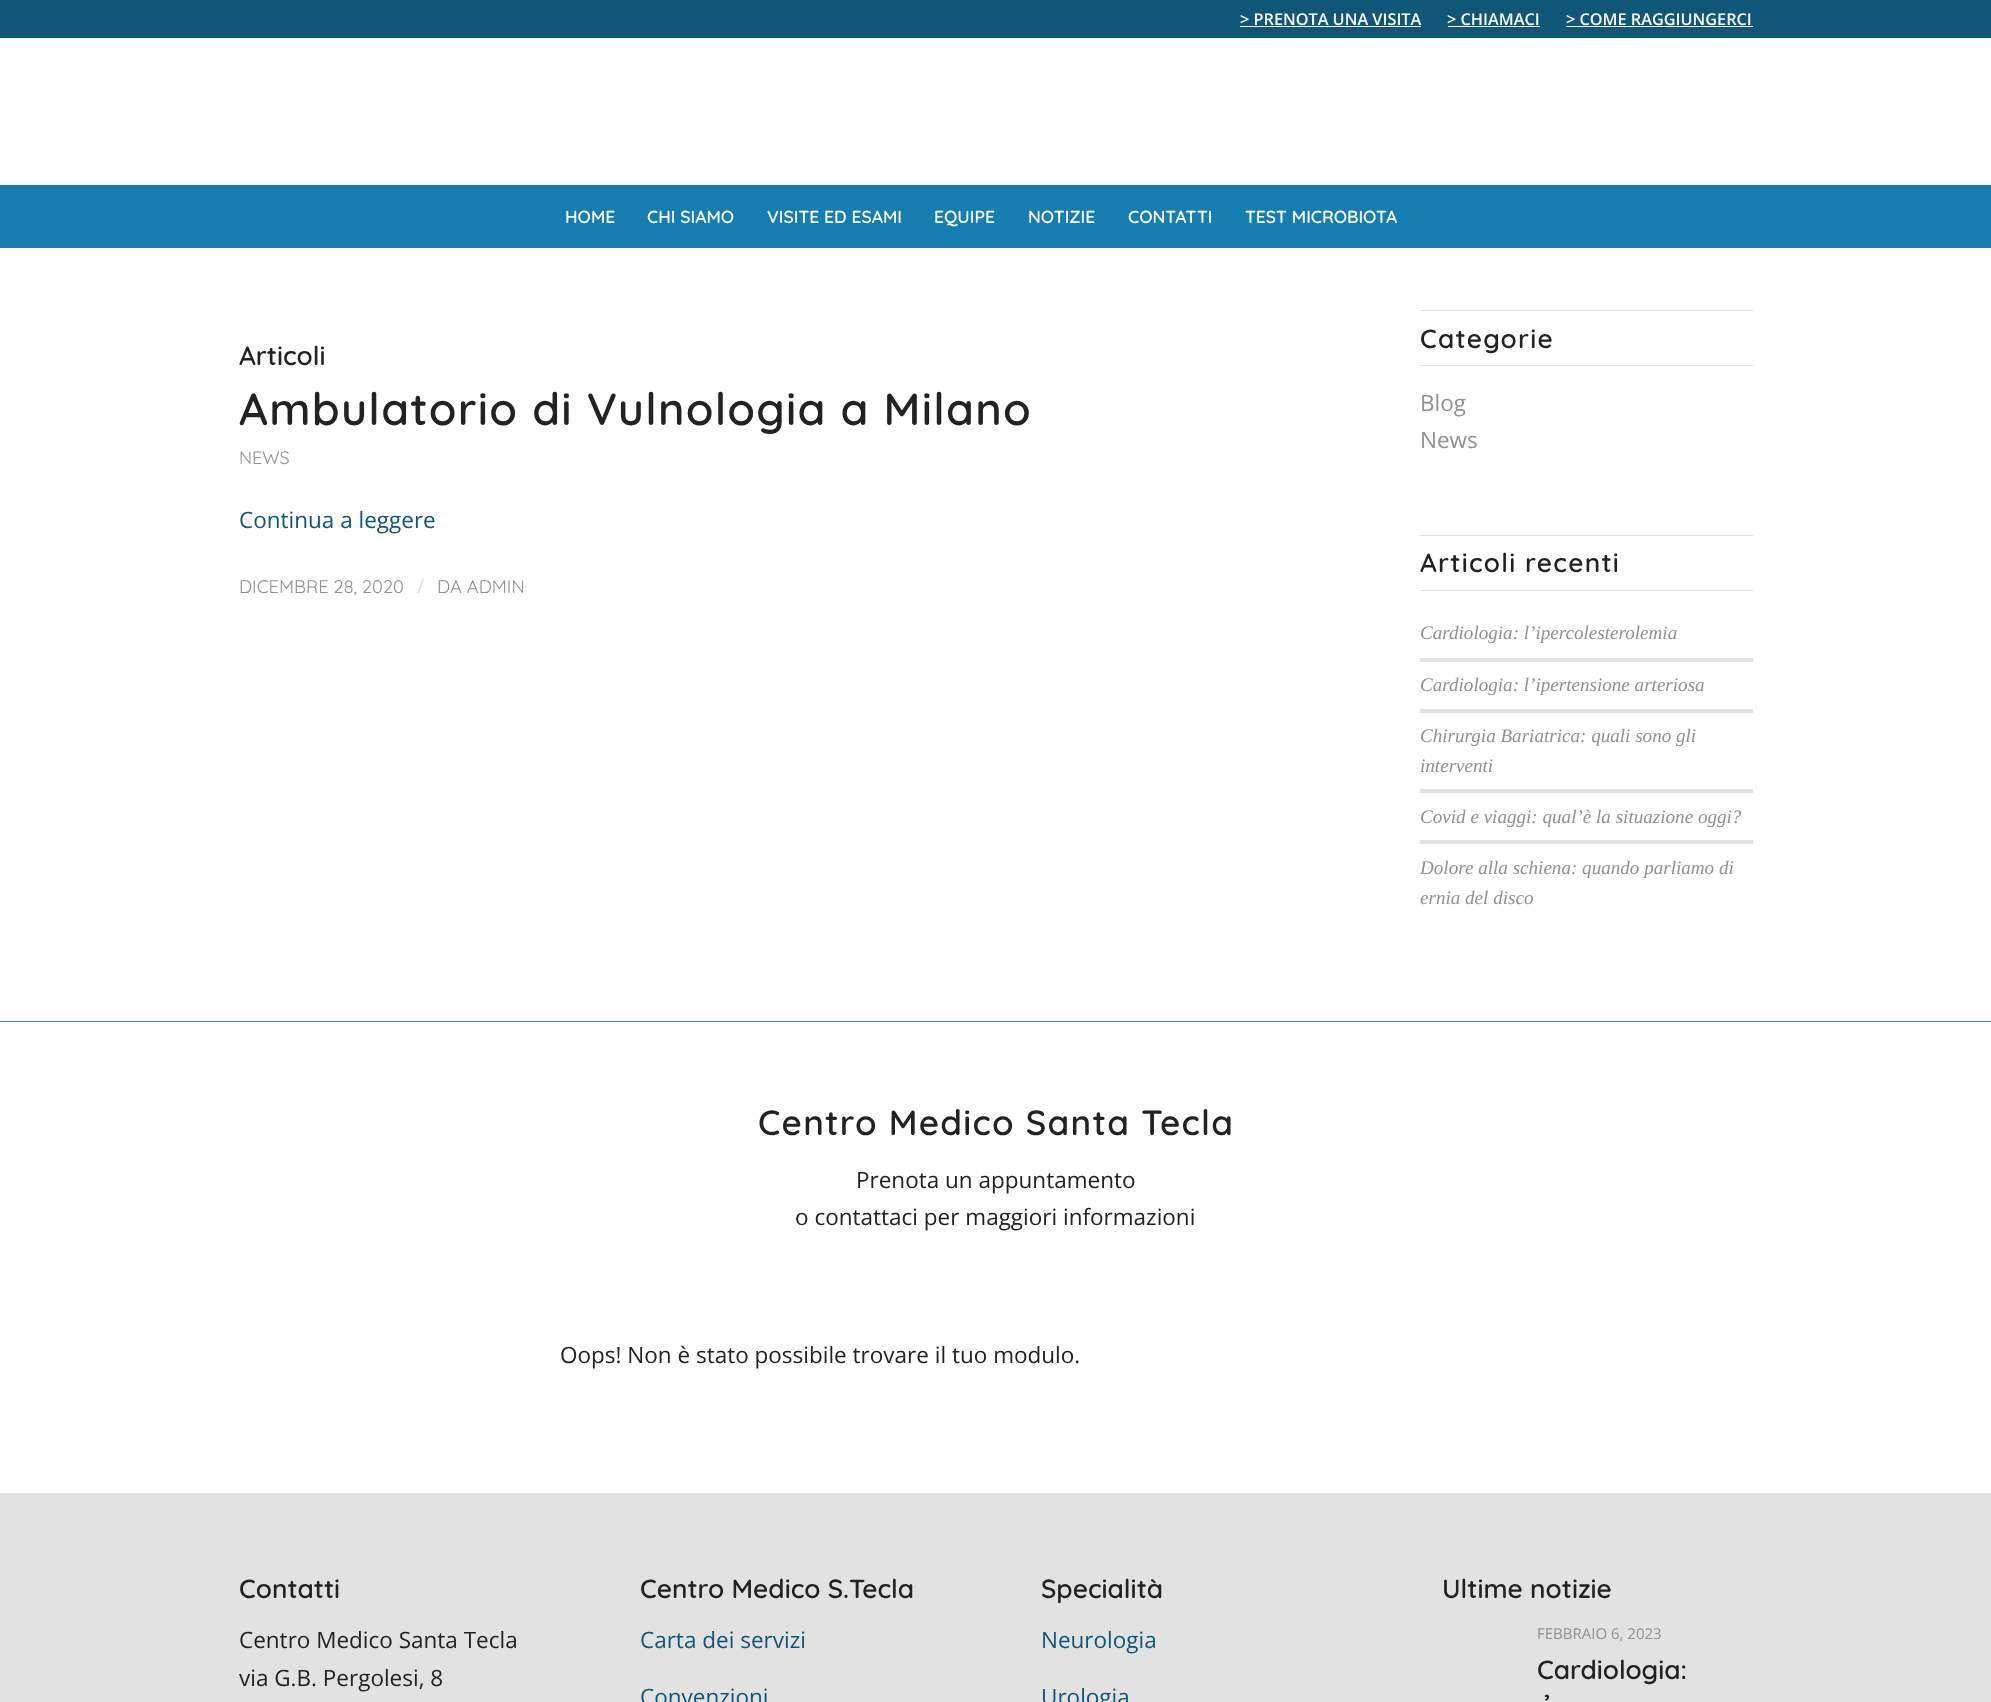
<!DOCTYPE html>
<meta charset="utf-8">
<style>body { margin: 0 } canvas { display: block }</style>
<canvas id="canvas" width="1991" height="1702"></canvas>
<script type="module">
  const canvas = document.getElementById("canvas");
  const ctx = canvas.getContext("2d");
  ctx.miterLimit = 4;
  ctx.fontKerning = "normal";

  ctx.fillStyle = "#ffffff";
  ctx.fillRect(0, 0, 1991, 1702);
  ctx.fillStyle = "#0f5679";
  ctx.fillRect(0, 0, 1991, 38);
  ctx.font = "600 16.25px Open Sans";
  ctx.fillStyle = "#ffffff";
  ctx.fillText("> PRENOTA UNA VISITA", 1240, 25);
  ctx.fillRect(1240, 26, 181, 1);
  ctx.fillText("> CHIAMACI", 1447, 25);
  ctx.fillRect(1448, 26, 92, 1);
  ctx.fillText("> COME RAGGIUNGERCI", 1566, 25);
  ctx.fillRect(1566, 26, 187, 1);
  ctx.fillStyle = "#167db0";
  ctx.fillRect(0, 185, 1991, 63);
  ctx.font = "600 17.5px Quicksand";
  ctx.fillStyle = "#ffffff";
  ctx.fillText("HOME", 565, 223);
  ctx.fillText("CHI SIAMO", 647, 223);
  ctx.fillText("VISITE ED ESAMI", 767, 223);
  ctx.fillText("EQUIPE", 934, 223);
  ctx.fillText("NOTIZIE", 1028, 223);
  ctx.fillText("CONTATTI", 1128, 223);
  ctx.fillText("TEST MICROBIOTA", 1245, 223);
  ctx.font = "600 26.25px Quicksand";
  ctx.fillStyle = "#222222";
  ctx.fillText("Articoli", 239, 365);
  ctx.letterSpacing = "1.25px";
  ctx.font = "600 45px Quicksand";
  ctx.fillText("Ambulatorio di Vulnologia a Milano", 239, 425);
  ctx.letterSpacing = "0px";
  ctx.font = "18px Quicksand";
  ctx.fillStyle = "#919191";
  ctx.fillText("NEWS", 239, 464);
  ctx.font = "22.5px Open Sans";
  ctx.fillStyle = "#0f5679";
  ctx.fillText("Continua a leggere", 239, 528);
  ctx.font = "18.25px Quicksand";
  ctx.fillStyle = "#919191";
  ctx.fillText("DICEMBRE 28, 2020", 239, 593);
  ctx.font = "20px Open Sans";
  ctx.fillStyle = "#dedede";
  ctx.fillText("/", 417, 593);
  ctx.font = "18.25px Quicksand";
  ctx.fillStyle = "#919191";
  ctx.fillText("DA ADMIN", 437, 593);
  ctx.fillStyle = "#e1e1e1";
  ctx.fillRect(1420, 310, 333, 1);
  ctx.fillRect(1420, 365, 333, 1);
  ctx.letterSpacing = "1.25px";
  ctx.font = "600 26.25px Quicksand";
  ctx.fillStyle = "#222222";
  ctx.fillText("Categorie", 1420, 348);
  ctx.letterSpacing = "0px";
  ctx.font = "22.5px Open Sans";
  ctx.fillStyle = "#919191";
  ctx.fillText("Blog", 1420, 411);
  ctx.fillText("News", 1420, 448);
  ctx.fillStyle = "#e1e1e1";
  ctx.fillRect(1420, 535, 333, 1);
  ctx.fillRect(1420, 590, 333, 1);
  ctx.letterSpacing = "1.25px";
  ctx.font = "600 26.25px Quicksand";
  ctx.fillStyle = "#222222";
  ctx.fillText("Articoli recenti", 1420, 572);
  ctx.letterSpacing = "0px";
  ctx.font = "italic 19.1px Liberation Serif";
  ctx.fillStyle = "#919191";
  ctx.fillText("Cardiologia: l’ipercolesterolemia", 1420, 639);
  ctx.fillStyle = "#e1e1e1";
  ctx.fillRect(1420, 658, 333, 4);
  ctx.fillStyle = "#919191";
  ctx.fillText("Cardiologia: l’ipertensione arteriosa", 1420, 691);
  ctx.fillStyle = "#e1e1e1";
  ctx.fillRect(1420, 709, 333, 4);
  ctx.fillStyle = "#919191";
  ctx.fillText("Chirurgia Bariatrica: quali sono gli", 1420, 742);
  ctx.fillText("interventi", 1420, 772);
  ctx.fillStyle = "#e1e1e1";
  ctx.fillRect(1420, 789, 333, 4);
  ctx.fillStyle = "#919191";
  ctx.fillText("Covid e viaggi: qual’è la situazione oggi?", 1420, 823);
  ctx.fillStyle = "#e1e1e1";
  ctx.fillRect(1420, 840, 333, 4);
  ctx.fillStyle = "#919191";
  ctx.fillText("Dolore alla schiena: quando parliamo di", 1420, 874);
  ctx.fillText("ernia del disco", 1420, 904);
  ctx.fillStyle = "#2388c2";
  ctx.fillRect(0, 1021, 1991, 1);
  ctx.letterSpacing = "1.25px";
  ctx.font = "600 35px Quicksand";
  ctx.fillStyle = "#222222";
  ctx.fillText("Centro Medico Santa Tecla", 758, 1135);
  ctx.letterSpacing = "0px";
  ctx.font = "22.5px Open Sans";
  ctx.fillText("Prenota un appuntamento", 856, 1188);
  ctx.fillText("o contattaci per maggiori informazioni", 795, 1225);
  ctx.fillText("Oops! Non è stato possibile trovare il tuo modulo.", 560, 1363);
  ctx.fillStyle = "#e2e2e2";
  ctx.fillRect(0, 1493, 1991, 209);
  ctx.font = "600 26.25px Quicksand";
  ctx.fillStyle = "#222222";
  ctx.fillText("Contatti", 239, 1598);
  ctx.font = "22.5px Open Sans";
  ctx.fillText("Centro Medico Santa Tecla", 239, 1648);
  ctx.fillText("via G.B. Pergolesi, 8", 239, 1686);
  ctx.font = "600 26.25px Quicksand";
  ctx.fillText("Centro Medico S.Tecla", 640, 1598);
  ctx.font = "22.5px Open Sans";
  ctx.fillStyle = "#0f5679";
  ctx.fillText("Carta dei servizi", 640, 1648);
  ctx.fillText("Convenzioni", 640, 1705);
  ctx.font = "600 26.25px Quicksand";
  ctx.fillStyle = "#222222";
  ctx.fillText("Specialità", 1041, 1598);
  ctx.font = "22.5px Open Sans";
  ctx.fillStyle = "#0f5679";
  ctx.fillText("Neurologia", 1041, 1648);
  ctx.fillText("Urologia", 1041, 1705);
  ctx.font = "600 26.25px Quicksand";
  ctx.fillStyle = "#222222";
  ctx.fillText("Ultime notizie", 1442, 1598);
  ctx.font = "15px Open Sans";
  ctx.fillStyle = "#919191";
  ctx.fillText("FEBBRAIO 6, 2023", 1537, 1639);
  ctx.font = "600 26.25px Quicksand";
  ctx.fillStyle = "#222222";
  ctx.fillText("Cardiologia:", 1537, 1679);
  ctx.fillText("’", 1544, 1713);
</script>
